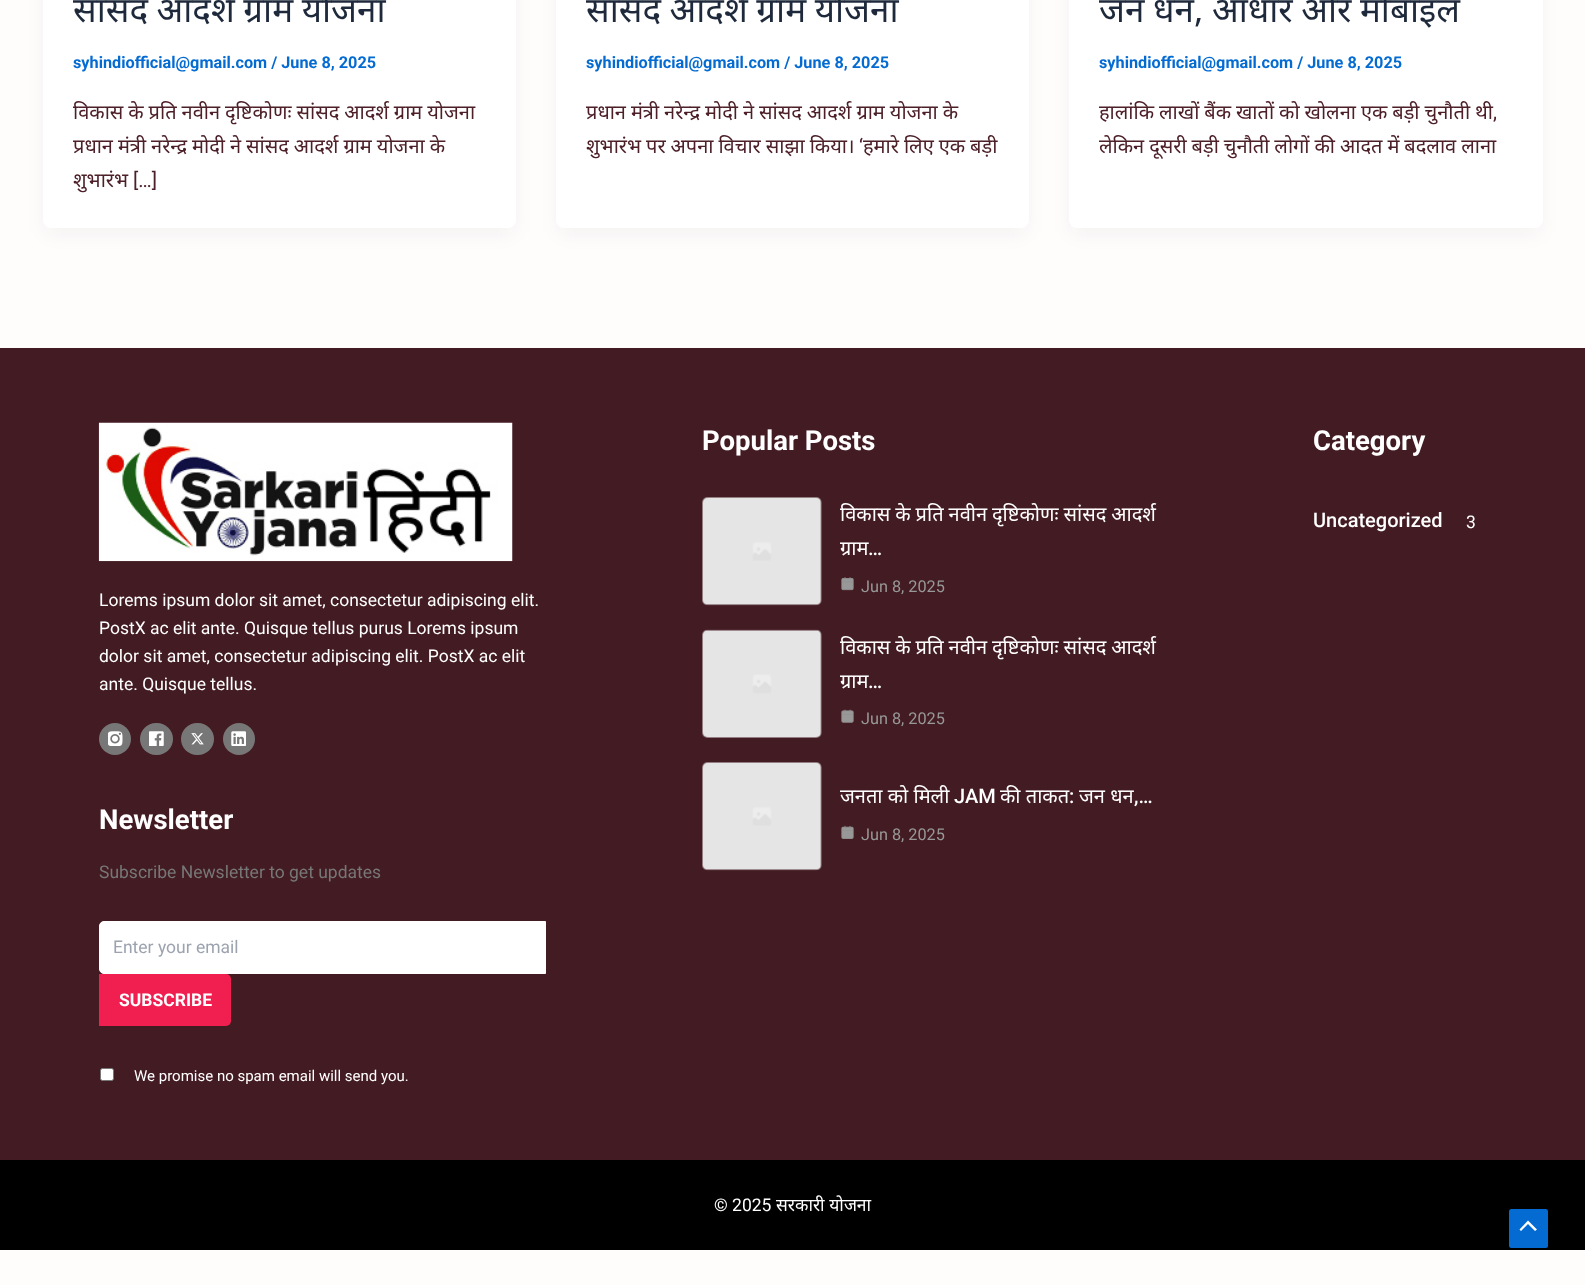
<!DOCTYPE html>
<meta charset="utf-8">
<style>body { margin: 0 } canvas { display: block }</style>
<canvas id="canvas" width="1585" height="1285"></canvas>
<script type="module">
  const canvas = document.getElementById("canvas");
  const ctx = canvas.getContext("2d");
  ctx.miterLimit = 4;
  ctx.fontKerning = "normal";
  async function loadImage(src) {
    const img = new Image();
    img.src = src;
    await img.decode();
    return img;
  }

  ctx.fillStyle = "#fffcfc";
  ctx.fillRect(0, 0, 1585, 1285);
  ctx.fillStyle = "rgba(16, 24, 40, 0.05)";
  ctx.filter = "blur(9.5px)";
  ctx.beginPath();
  ctx.roundRect(45, -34, 469, 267, 5);
  ctx.fill();
  ctx.filter = "none";
  ctx.fillStyle = "#ffffff";
  ctx.beginPath();
  ctx.roundRect(43, -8, 473, 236, 8);
  ctx.fill();
  ctx.wordSpacing = "-0.5px";
  ctx.font = "35px Noto Sans";
  ctx.fillStyle = "#1e293b";
  ctx.fillText("सांसद आदर्श ग्राम योजना", 73, 22);
  ctx.wordSpacing = "0px";
  ctx.font = "bold 16.25px Roboto";
  ctx.fillStyle = "#046bd2";
  ctx.fillText("syhindiofficial@gmail.com / June 8, 2025", 73, 68);
  ctx.wordSpacing = "-0.25px";
  ctx.font = "20px Noto Sans";
  ctx.fillStyle = "#4d2029";
  ctx.fillText("विकास के प्रति नवीन दृष्टिकोणः सांसद आदर्श ग्राम योजना", 73, 119);
  ctx.fillText("प्रधान मंत्री नरेन्द्र मोदी ने सांसद आदर्श ग्राम योजना के", 73, 153);
  ctx.wordSpacing = "0px";
  ctx.fillText("शुभारंभ", 73, 187);
  ctx.font = "20px Roboto";
  ctx.fillText("[…]", 133, 187);
  ctx.fillStyle = "rgba(16, 24, 40, 0.05)";
  ctx.filter = "blur(9.5px)";
  ctx.beginPath();
  ctx.roundRect(559, -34, 467, 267, 5);
  ctx.fill();
  ctx.filter = "none";
  ctx.fillStyle = "#ffffff";
  ctx.beginPath();
  ctx.roundRect(556, -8, 473, 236, 8);
  ctx.fill();
  ctx.wordSpacing = "-0.5px";
  ctx.font = "35px Noto Sans";
  ctx.fillStyle = "#1e293b";
  ctx.fillText("सांसद आदर्श ग्राम योजना", 586, 22);
  ctx.wordSpacing = "0px";
  ctx.font = "bold 16.25px Roboto";
  ctx.fillStyle = "#046bd2";
  ctx.fillText("syhindiofficial@gmail.com / June 8, 2025", 586, 68);
  ctx.wordSpacing = "-0.25px";
  ctx.font = "20px Noto Sans";
  ctx.fillStyle = "#4d2029";
  ctx.fillText("प्रधान मंत्री नरेन्द्र मोदी ने सांसद आदर्श ग्राम योजना के", 586, 119);
  ctx.fillText("शुभारंभ पर अपना विचार साझा किया।", 586, 153);
  ctx.wordSpacing = "0px";
  ctx.font = "20px Roboto";
  ctx.fillText("‘", 859, 153);
  ctx.wordSpacing = "-0.25px";
  ctx.font = "20px Noto Sans";
  ctx.fillText("हमारे लिए एक बड़ी", 863, 153);
  ctx.fillStyle = "rgba(16, 24, 40, 0.05)";
  ctx.filter = "blur(9.5px)";
  ctx.beginPath();
  ctx.roundRect(1071, -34, 469, 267, 5);
  ctx.fill();
  ctx.filter = "none";
  ctx.fillStyle = "#ffffff";
  ctx.beginPath();
  ctx.roundRect(1069, -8, 474, 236, 8);
  ctx.fill();
  ctx.wordSpacing = "-0.5px";
  ctx.font = "35px Noto Sans";
  ctx.fillStyle = "#1e293b";
  ctx.fillText("जन धन, आधार और मोबाइल", 1099, 22);
  ctx.wordSpacing = "0px";
  ctx.font = "bold 16.25px Roboto";
  ctx.fillStyle = "#046bd2";
  ctx.fillText("syhindiofficial@gmail.com / June 8, 2025", 1099, 68);
  ctx.wordSpacing = "-0.25px";
  ctx.font = "20px Noto Sans";
  ctx.fillStyle = "#4d2029";
  ctx.fillText("हालांकि लाखों बैंक खातों को खोलना एक बड़ी चुनौती थी", 1099, 119);
  ctx.wordSpacing = "0px";
  ctx.font = "20px Roboto";
  ctx.fillText(",", 1493, 119);
  ctx.wordSpacing = "-0.25px";
  ctx.font = "20px Noto Sans";
  ctx.fillText("लेकिन दूसरी बड़ी चुनौती लोगों की आदत में बदलाव लाना", 1099, 153);
  ctx.fillStyle = "#431b23";
  ctx.fillRect(0, 348, 1585, 812);
  ctx.wordSpacing = "0px";
  ctx.font = "bold 27.5px Roboto";
  ctx.fillStyle = "#ffffff";
  ctx.fillText("Popular Posts", 702, 450);
  ctx.drawImage(await loadImage("img1.png"), 702, 497, 120, 109);
  ctx.wordSpacing = "-0.25px";
  ctx.font = "20px Noto Sans";
  ctx.fillText("विकास के प्रति नवीन दृष्टिकोणः सांसद आदर्श", 840, 521);
  ctx.wordSpacing = "0px";
  ctx.fillText("ग्राम", 840, 555);
  ctx.font = "500 20px Roboto";
  ctx.fillText("…", 868, 555);
  ctx.drawImage(await loadImage("img2.png"), 841, 577, 13, 14);
  ctx.font = "16.25px Roboto";
  ctx.fillStyle = "#989898";
  ctx.fillText("Jun 8, 2025", 861, 592);
  ctx.drawImage(await loadImage("img3.png"), 702, 629, 120, 109);
  ctx.wordSpacing = "-0.25px";
  ctx.font = "20px Noto Sans";
  ctx.fillStyle = "#ffffff";
  ctx.fillText("विकास के प्रति नवीन दृष्टिकोणः सांसद आदर्श", 840, 654);
  ctx.wordSpacing = "0px";
  ctx.fillText("ग्राम", 840, 688);
  ctx.font = "500 20px Roboto";
  ctx.fillText("…", 868, 688);
  ctx.drawImage(await loadImage("img4.png"), 841, 709, 13, 14);
  ctx.font = "16.25px Roboto";
  ctx.fillStyle = "#989898";
  ctx.fillText("Jun 8, 2025", 861, 724);
  ctx.drawImage(await loadImage("img5.png"), 702, 762, 120, 109);
  ctx.font = "20px Noto Sans";
  ctx.fillStyle = "#ffffff";
  ctx.fillText("जनता को मिली", 840, 803);
  ctx.font = "500 20px Roboto";
  ctx.fillText("JAM", 954, 803);
  ctx.font = "20px Noto Sans";
  ctx.fillText("की ताकत", 1000, 803);
  ctx.font = "500 20px Roboto";
  ctx.fillText(":", 1069, 803);
  ctx.font = "20px Noto Sans";
  ctx.fillText("जन धन", 1079, 803);
  ctx.font = "500 20px Roboto";
  ctx.fillText(",…", 1134, 803);
  ctx.drawImage(await loadImage("img6.png"), 841, 825, 13, 14);
  ctx.font = "16.25px Roboto";
  ctx.fillStyle = "#989898";
  ctx.fillText("Jun 8, 2025", 861, 840);
  ctx.font = "bold 27.5px Roboto";
  ctx.fillStyle = "#ffffff";
  ctx.fillText("Category", 1313, 450);
  ctx.font = "500 20px Roboto";
  ctx.fillText("Uncategorized", 1313, 527);
  ctx.font = "17.5px Roboto";
  ctx.fillText("3", 1466, 528);
  ctx.drawImage(await loadImage("img7.png"), 98, 422, 415, 140);
  ctx.fillText("Lorems ipsum dolor sit amet, consectetur adipiscing elit.", 99, 606);
  ctx.fillText("PostX ac elit ante. Quisque tellus purus Lorems ipsum", 99, 634);
  ctx.fillText("dolor sit amet, consectetur adipiscing elit. PostX ac elit", 99, 662);
  ctx.fillText("ante. Quisque tellus.", 99, 690);
  ctx.fillStyle = "#777777";
  ctx.beginPath();
  ctx.arc(115, 739, 16, 0, Math.PI * 2);
  ctx.fill();
  ctx.drawImage(await loadImage("img8.png"), 108, 731, 15, 15);
  ctx.beginPath();
  ctx.roundRect(140, 723, 33, 32, 16);
  ctx.fill();
  ctx.drawImage(await loadImage("img9.png"), 149, 731, 15, 15);
  ctx.beginPath();
  ctx.roundRect(181, 723, 33, 32, 16);
  ctx.fill();
  ctx.drawImage(await loadImage("img10.png"), 191, 733, 13, 12);
  ctx.beginPath();
  ctx.arc(239, 739, 16, 0, Math.PI * 2);
  ctx.fill();
  ctx.drawImage(await loadImage("img11.png"), 231, 731, 15, 15);
  ctx.font = "bold 27.5px Roboto";
  ctx.fillStyle = "#ffffff";
  ctx.fillText("Newsletter", 99, 829);
  ctx.font = "17.5px Roboto";
  ctx.fillStyle = "#777777";
  ctx.fillText("Subscribe Newsletter to get updates", 99, 878);
  ctx.fillStyle = "#ffffff";
  ctx.beginPath();
  ctx.roundRect(99.5, 921.5, 446, 52, [4.5, 0, 0, 4.5]);
  ctx.fill();
  ctx.strokeStyle = "#ffffff";
  ctx.stroke();
  ctx.fillStyle = "#9ca3af";
  ctx.fillText("Enter your email", 113, 953);
  ctx.fillStyle = "#f01f50";
  ctx.beginPath();
  ctx.roundRect(99, 974, 132, 52, [0, 5, 5, 0]);
  ctx.fill();
  ctx.font = "bold 17.5px Roboto";
  ctx.fillStyle = "#ffffff";
  ctx.fillText("SUBSCRIBE", 119, 1006);
  ctx.beginPath();
  ctx.roundRect(100.5, 1068.5, 13, 12, 2);
  ctx.fill();
  ctx.strokeStyle = "#767676";
  ctx.stroke();
  ctx.font = "15px Roboto";
  ctx.fillText("We promise no spam email will send you.", 134, 1081);
  ctx.fillStyle = "#000000";
  ctx.fillRect(0, 1160, 1585, 90);
  ctx.font = "17.5px Roboto";
  ctx.fillStyle = "#ffffff";
  ctx.fillText("© 2025", 714, 1211);
  ctx.font = "17.5px Noto Sans";
  ctx.fillText("सरकारी योजना", 776, 1211);
  ctx.fillStyle = "#046bd2";
  ctx.beginPath();
  ctx.roundRect(1509, 1209, 39, 39, 2.5);
  ctx.fill();
  ctx.fillStyle = "#ffffff";
  ctx.beginPath();
  ctx.moveTo(1537, 1229.5);
  ctx.lineTo(1528, 1220.5);
  ctx.lineTo(1519.5, 1229.5);
  ctx.lineTo(1521, 1231);
  ctx.lineTo(1528, 1224);
  ctx.lineTo(1535, 1231);
  ctx.closePath();
  ctx.fill();
</script>
